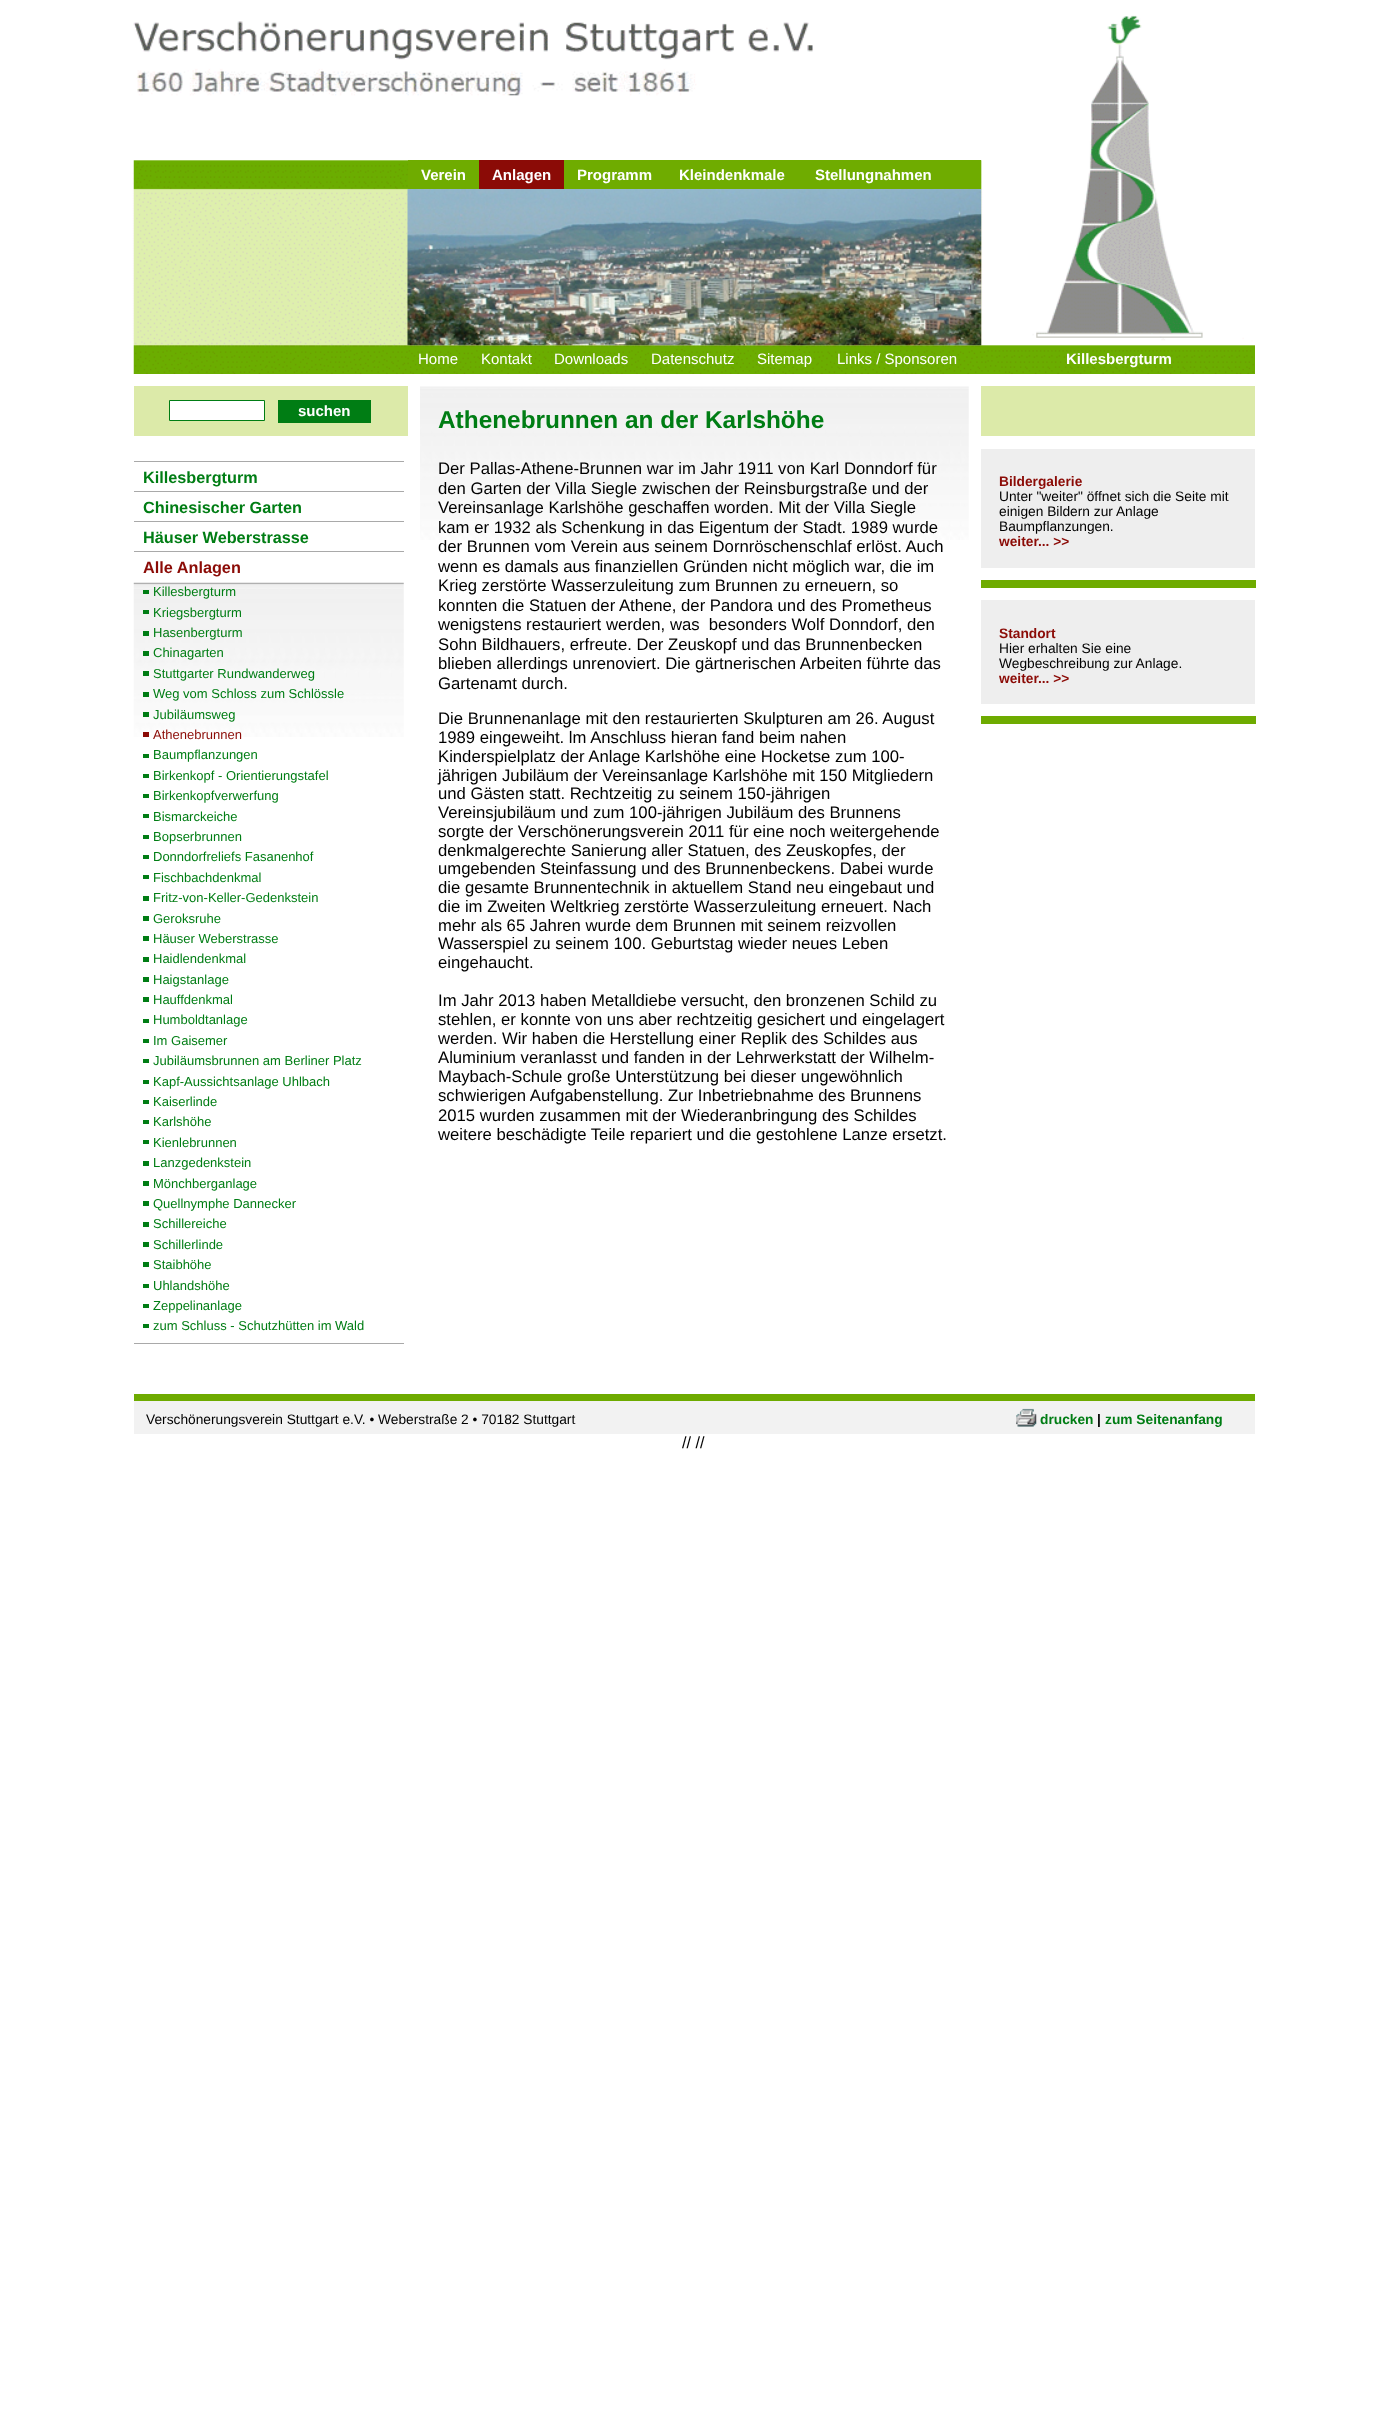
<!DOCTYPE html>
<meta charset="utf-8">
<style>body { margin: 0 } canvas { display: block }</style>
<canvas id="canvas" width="1387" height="2418"></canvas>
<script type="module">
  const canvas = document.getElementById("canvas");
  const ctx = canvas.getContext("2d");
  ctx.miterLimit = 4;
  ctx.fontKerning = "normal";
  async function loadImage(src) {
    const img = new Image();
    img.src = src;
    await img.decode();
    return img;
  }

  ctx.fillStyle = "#ffffff";
  ctx.fillRect(0, 0, 1387, 2418);
  ctx.drawImage(await loadImage("img1.png"), 132, 15, 1123, 359);
  ctx.fillStyle = "#6fac00";
  ctx.fillRect(408, 160, 573, 29);
  ctx.font = "bold 15px Liberation Sans";
  ctx.fillStyle = "#ffffff";
  ctx.fillText("Verein", 421, 180);
  ctx.fillStyle = "#8b0b06";
  ctx.fillRect(479, 160, 85, 29);
  ctx.fillStyle = "#ffffff";
  ctx.fillText("Anlagen", 492, 180);
  ctx.fillText("Programm", 577, 180);
  ctx.fillText("Kleindenkmale", 679, 180);
  ctx.fillText("Stellungnahmen", 815, 180);
  ctx.drawImage(await loadImage("img2.png"), 407, 189, 575, 157);
  ctx.font = "15px Liberation Sans";
  ctx.fillText("Home", 418, 364);
  ctx.fillText("Kontakt", 481, 364);
  ctx.fillText("Downloads", 554, 364);
  ctx.fillText("Datenschutz", 651, 364);
  ctx.fillText("Sitemap", 757, 364);
  ctx.fillText("Links / Sponsoren", 837, 364);
  ctx.font = "bold 15px Liberation Sans";
  ctx.fillText("Killesbergturm", 1066, 364);
  ctx.fillStyle = "#dceaa9";
  ctx.fillRect(134, 386, 274, 50);
  ctx.fillStyle = "#ffffff";
  ctx.beginPath();
  ctx.rect(169.5, 400.5, 95, 20);
  ctx.fill();
  ctx.strokeStyle = "#007d14";
  ctx.stroke();
  ctx.fillStyle = "#007d14";
  ctx.fillRect(278, 400, 93, 23);
  ctx.fillStyle = "#ffffff";
  ctx.fillText("suchen", 298, 416);
  ctx.fillStyle = "#a9a9a9";
  ctx.fillRect(134, 1343, 270, 1);
  ctx.fillRect(134, 461, 270, 1);
  ctx.font = "bold 16.25px Liberation Sans";
  ctx.fillStyle = "#007d14";
  ctx.fillText("Killesbergturm", 143, 483);
  ctx.fillStyle = "#a9a9a9";
  ctx.fillRect(134, 491, 270, 1);
  ctx.fillStyle = "#007d14";
  ctx.fillText("Chinesischer Garten", 143, 513);
  ctx.fillStyle = "#a9a9a9";
  ctx.fillRect(134, 521, 270, 1);
  ctx.fillStyle = "#007d14";
  ctx.fillText("Häuser Weberstrasse", 143, 543);
  ctx.drawImage(await loadImage("img3.png"), 133, 582, 271, 155);
  ctx.fillStyle = "#a9a9a9";
  ctx.fillRect(134, 551, 270, 1);
  ctx.fillStyle = "#8b0b06";
  ctx.fillText("Alle Anlagen", 143, 573);
  ctx.fillStyle = "#007d14";
  ctx.fillRect(143, 590, 6, 4);
  ctx.font = "13px Liberation Sans";
  ctx.fillText("Killesbergturm", 153, 596);
  ctx.fillRect(143, 610, 6, 4);
  ctx.fillText("Kriegsbergturm", 153, 617);
  ctx.fillRect(143, 631, 6, 5);
  ctx.fillText("Hasenbergturm", 153, 637);
  ctx.fillRect(143, 651, 6, 5);
  ctx.fillText("Chinagarten", 153, 657);
  ctx.fillRect(143, 671, 6, 5);
  ctx.fillText("Stuttgarter Rundwanderweg", 153, 678);
  ctx.fillRect(143, 692, 6, 5);
  ctx.fillText("Weg vom Schloss zum Schlössle", 153, 698);
  ctx.fillRect(143, 712, 6, 5);
  ctx.fillText("Jubiläumsweg", 153, 719);
  ctx.fillStyle = "#8b0b06";
  ctx.fillRect(143, 732, 6, 5);
  ctx.fillText("Athenebrunnen", 153, 739);
  ctx.fillStyle = "#007d14";
  ctx.fillRect(143, 754, 6, 4);
  ctx.fillText("Baumpflanzungen", 153, 759);
  ctx.fillRect(143, 774, 6, 4);
  ctx.fillText("Birkenkopf - Orientierungstafel", 153, 780);
  ctx.fillRect(143, 794, 6, 4);
  ctx.fillText("Birkenkopfverwerfung", 153, 800);
  ctx.fillRect(143, 814, 6, 4);
  ctx.fillText("Bismarckeiche", 153, 821);
  ctx.fillRect(143, 835, 6, 4);
  ctx.fillText("Bopserbrunnen", 153, 841);
  ctx.fillRect(143, 855, 6, 4);
  ctx.fillText("Donndorfreliefs Fasanenhof", 153, 861);
  ctx.fillRect(143, 875, 6, 4);
  ctx.fillText("Fischbachdenkmal", 153, 882);
  ctx.fillRect(143, 896, 6, 5);
  ctx.fillText("Fritz-von-Keller-Gedenkstein", 153, 902);
  ctx.fillRect(143, 916, 6, 5);
  ctx.fillText("Geroksruhe", 153, 923);
  ctx.fillRect(143, 936, 6, 5);
  ctx.fillText("Häuser Weberstrasse", 153, 943);
  ctx.fillRect(143, 957, 6, 5);
  ctx.fillText("Haidlendenkmal", 153, 963);
  ctx.fillRect(143, 977, 6, 5);
  ctx.fillText("Haigstanlage", 153, 984);
  ctx.fillRect(143, 997, 6, 5);
  ctx.fillText("Hauffdenkmal", 153, 1004);
  ctx.fillRect(143, 1019, 6, 4);
  ctx.fillText("Humboldtanlage", 153, 1024);
  ctx.fillRect(143, 1039, 6, 4);
  ctx.fillText("Im Gaisemer", 153, 1045);
  ctx.fillRect(143, 1059, 6, 4);
  ctx.fillText("Jubiläumsbrunnen am Berliner Platz", 153, 1065);
  ctx.fillRect(143, 1080, 6, 4);
  ctx.fillText("Kapf-Aussichtsanlage Uhlbach", 153, 1086);
  ctx.fillRect(143, 1100, 6, 4);
  ctx.fillText("Kaiserlinde", 153, 1106);
  ctx.fillRect(143, 1120, 6, 4);
  ctx.fillText("Karlshöhe", 153, 1126);
  ctx.fillRect(143, 1140, 6, 4);
  ctx.fillText("Kienlebrunnen", 153, 1147);
  ctx.fillRect(143, 1161, 6, 5);
  ctx.fillText("Lanzgedenkstein", 153, 1167);
  ctx.fillRect(143, 1181, 6, 5);
  ctx.fillText("Mönchberganlage", 153, 1188);
  ctx.fillRect(143, 1201, 6, 5);
  ctx.fillText("Quellnymphe Dannecker", 153, 1208);
  ctx.fillRect(143, 1222, 6, 5);
  ctx.fillText("Schillereiche", 153, 1228);
  ctx.fillRect(143, 1242, 6, 5);
  ctx.fillText("Schillerlinde", 153, 1249);
  ctx.fillRect(143, 1262, 6, 5);
  ctx.fillText("Staibhöhe", 153, 1269);
  ctx.fillRect(143, 1284, 6, 4);
  ctx.fillText("Uhlandshöhe", 153, 1290);
  ctx.fillRect(143, 1304, 6, 4);
  ctx.fillText("Zeppelinanlage", 153, 1310);
  ctx.fillRect(143, 1324, 6, 4);
  ctx.fillText("zum Schluss - Schutzhütten im Wald", 153, 1330);
  ctx.drawImage(await loadImage("img4.png"), 420, 386, 549, 154);
  ctx.font = "bold 24.4px Liberation Sans";
  ctx.fillText("Athenebrunnen an der Karlshöhe", 438, 428);
  ctx.font = "16.7px Liberation Sans";
  ctx.fillStyle = "#000000";
  ctx.fillText("Der Pallas-Athene-Brunnen war im Jahr 1911 von Karl Donndorf für", 438, 474);
  ctx.fillText("den Garten der Villa Siegle zwischen der Reinsburgstraße und der", 438, 494);
  ctx.fillText("Vereinsanlage Karlshöhe geschaffen worden. Mit der Villa Siegle", 438, 513);
  ctx.fillText("kam er 1932 als Schenkung in das Eigentum der Stadt. 1989 wurde", 438, 533);
  ctx.fillText("der Brunnen vom Verein aus seinem Dornröschenschlaf erlöst. Auch", 438, 552);
  ctx.fillText("wenn es damals aus finanziellen Gründen nicht möglich war, die im", 438, 572);
  ctx.fillText("Krieg zerstörte Wasserzuleitung zum Brunnen zu erneuern, so", 438, 591);
  ctx.fillText("konnten die Statuen der Athene, der Pandora und des Prometheus", 438, 611);
  ctx.fillText("wenigstens restauriert werden, was  besonders Wolf Donndorf, den", 438, 630);
  ctx.fillText("Sohn Bildhauers, erfreute. Der Zeuskopf und das Brunnenbecken", 438, 650);
  ctx.fillText("blieben allerdings unrenoviert. Die gärtnerischen Arbeiten führte das", 438, 669);
  ctx.fillText("Gartenamt durch.", 438, 689);
  ctx.fillText("Die Brunnenanlage mit den restaurierten Skulpturen am 26. August", 438, 724);
  ctx.fillText("1989 eingeweiht. lm Anschluss hieran fand beim nahen", 438, 743);
  ctx.fillText("Kinderspielplatz der Anlage Karlshöhe eine Hocketse zum 100-", 438, 762);
  ctx.fillText("jährigen Jubiläum der Vereinsanlage Karlshöhe mit 150 Mitgliedern", 438, 781);
  ctx.fillText("und Gästen statt. Rechtzeitig zu seinem 150-jährigen", 438, 799);
  ctx.fillText("Vereinsjubiläum und zum 100-jährigen Jubiläum des Brunnens", 438, 818);
  ctx.fillText("sorgte der Verschönerungsverein 2011 für eine noch weitergehende", 438, 837);
  ctx.fillText("denkmalgerechte Sanierung aller Statuen, des Zeuskopfes, der", 438, 856);
  ctx.fillText("umgebenden Steinfassung und des Brunnenbeckens. Dabei wurde", 438, 874);
  ctx.fillText("die gesamte Brunnentechnik in aktuellem Stand neu eingebaut und", 438, 893);
  ctx.fillText("die im Zweiten Weltkrieg zerstörte Wasserzuleitung erneuert. Nach", 438, 912);
  ctx.fillText("mehr als 65 Jahren wurde dem Brunnen mit seinem reizvollen", 438, 931);
  ctx.fillText("Wasserspiel zu seinem 100. Geburtstag wieder neues Leben", 438, 949);
  ctx.fillText("eingehaucht.", 438, 968);
  ctx.fillText("Im Jahr 2013 haben Metalldiebe versucht, den bronzenen Schild zu", 438, 1006);
  ctx.fillText("stehlen, er konnte von uns aber rechtzeitig gesichert und eingelagert", 438, 1025);
  ctx.fillText("werden. Wir haben die Herstellung einer Replik des Schildes aus", 438, 1044);
  ctx.fillText("Aluminium veranlasst und fanden in der Lehrwerkstatt der Wilhelm-", 438, 1063);
  ctx.fillText("Maybach-Schule große Unterstützung bei dieser ungewöhnlich", 438, 1082);
  ctx.fillText("schwierigen Aufgabenstellung. Zur Inbetriebnahme des Brunnens", 438, 1101);
  ctx.fillText("2015 wurden zusammen mit der Wiederanbringung des Schildes", 438, 1121);
  ctx.fillText("weitere beschädigte Teile repariert und die gestohlene Lanze ersetzt.", 438, 1140);
  ctx.fillStyle = "#dceaa9";
  ctx.fillRect(981, 386, 274, 50);
  ctx.fillStyle = "#eeeeee";
  ctx.fillRect(981, 449, 274, 119);
  ctx.font = "bold 13.75px Liberation Sans";
  ctx.fillStyle = "#8b0b06";
  ctx.fillText("Bildergalerie", 999, 486);
  ctx.font = "13.75px Liberation Sans";
  ctx.fillStyle = "#000000";
  ctx.fillText("Unter \"weiter\" öffnet sich die Seite mit", 999, 501);
  ctx.fillText("einigen Bildern zur Anlage", 999, 516);
  ctx.fillText("Baumpflanzungen.", 999, 531);
  ctx.font = "bold 13.75px Liberation Sans";
  ctx.fillStyle = "#8b0b06";
  ctx.fillText("weiter... >>", 999, 546);
  ctx.fillStyle = "#6eab00";
  ctx.fillRect(981, 580, 275, 8);
  ctx.fillStyle = "#eeeeee";
  ctx.fillRect(981, 600, 274, 104);
  ctx.fillStyle = "#8b0b06";
  ctx.fillText("Standort", 999, 638);
  ctx.font = "13.75px Liberation Sans";
  ctx.fillStyle = "#000000";
  ctx.fillText("Hier erhalten Sie eine", 999, 653);
  ctx.fillText("Wegbeschreibung zur Anlage.", 999, 668);
  ctx.font = "bold 13.75px Liberation Sans";
  ctx.fillStyle = "#8b0b06";
  ctx.fillText("weiter... >>", 999, 683);
  ctx.fillStyle = "#6eab00";
  ctx.fillRect(981, 716, 275, 8);
  ctx.fillStyle = "#f2f2f2";
  ctx.fillRect(134, 1401, 1121, 33);
  ctx.fillStyle = "#6eab00";
  ctx.fillRect(134, 1394, 1121, 7);
  ctx.font = "13.75px Liberation Sans";
  ctx.fillStyle = "#000000";
  ctx.fillText("Verschönerungsverein Stuttgart e.V. • Weberstraße 2 • 70182 Stuttgart", 146, 1424);
  ctx.drawImage(await loadImage("img5.png"), 1016, 1408, 21, 19);
  ctx.font = "bold 13.75px Liberation Sans";
  ctx.fillStyle = "#007d14";
  ctx.fillText("drucken", 1040, 1424);
  ctx.fillStyle = "#000000";
  ctx.fillText("|", 1097, 1424);
  ctx.fillStyle = "#007d14";
  ctx.fillText("zum Seitenanfang", 1105, 1424);
  ctx.font = "16.25px Liberation Sans";
  ctx.fillStyle = "#000000";
  ctx.fillText("// //", 682, 1448);
</script>
